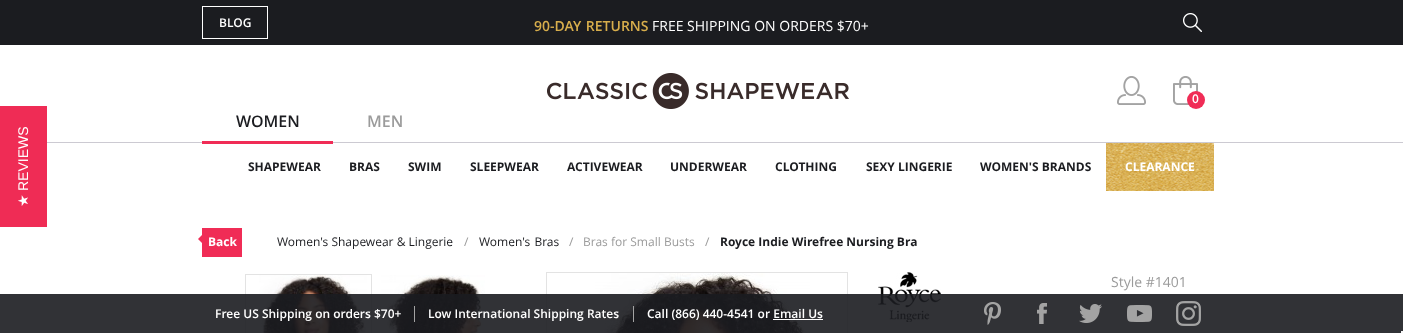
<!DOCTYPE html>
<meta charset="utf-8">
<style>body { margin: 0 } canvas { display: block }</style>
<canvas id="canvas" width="1403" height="333"></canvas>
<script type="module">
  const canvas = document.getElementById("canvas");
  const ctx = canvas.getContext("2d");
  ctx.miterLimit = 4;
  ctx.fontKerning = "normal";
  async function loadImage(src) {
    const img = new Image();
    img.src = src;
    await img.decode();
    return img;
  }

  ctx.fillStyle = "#ffffff";
  ctx.fillRect(0, 0, 1403, 333);
  ctx.fillStyle = "#ef2c55";
  ctx.fillRect(0, 106, 47, 121);
  ctx.font = "14px Liberation Sans";
  ctx.fillStyle = "#ffffff";
  ctx.save();
  ctx.translate(28, 191);
  ctx.rotate(-90 * Math.PI / 180);
  ctx.fillText("REVIEWS", 0, 0);
  ctx.restore();
  ctx.font = "14px DejaVu Sans";
  ctx.save();
  ctx.translate(28, 207);
  ctx.rotate(-90 * Math.PI / 180);
  ctx.fillText("★", 0, 0);
  ctx.restore();
  ctx.fillStyle = "#1b1c20";
  ctx.fillRect(0, 0, 1403, 45);
  ctx.strokeStyle = "#ffffff";
  ctx.strokeRect(202.5, 6.5, 65, 32);
  ctx.font = "600 12px Open Sans";
  ctx.fillStyle = "#ffffff";
  ctx.fillText("BLOG", 219, 27);
  ctx.wordSpacing = "1px";
  ctx.font = "600 14px Open Sans";
  ctx.fillStyle = "#d8ae4c";
  ctx.fillText("90-DAY RETURNS", 534, 31);
  ctx.wordSpacing = "0px";
  ctx.font = "14px Open Sans";
  ctx.fillStyle = "#ffffff";
  ctx.fillText("FREE SHIPPING ON ORDERS $70+", 652, 31);
  ctx.drawImage(await loadImage("img1.png"), 1183, 13, 19, 19);
  ctx.fillStyle = "#cccad2";
  ctx.fillRect(47, 142, 1356, 1);
  ctx.drawImage(await loadImage("img2.png"), 547, 73, 302, 36);
  ctx.drawImage(await loadImage("img3.png"), 1117, 76, 29, 29);
  ctx.drawImage(await loadImage("img4.png"), 1173, 76, 25, 29);
  ctx.fillStyle = "#f02c56";
  ctx.beginPath();
  ctx.arc(1196, 100, 9, 0, Math.PI * 2);
  ctx.fill();
  ctx.font = "600 12px Open Sans";
  ctx.fillStyle = "#ffffff";
  ctx.fillText("0", 1192, 103);
  ctx.fillStyle = "#f02c56";
  ctx.fillRect(202, 141, 131, 3);
  ctx.font = "600 16px Open Sans";
  ctx.fillStyle = "#1b1c20";
  ctx.fillText("WOMEN", 236, 127);
  ctx.fillStyle = "#9b9b9b";
  ctx.fillText("MEN", 367, 127);
  ctx.font = "bold 12px Open Sans";
  ctx.fillStyle = "#1b1c20";
  ctx.fillText("SHAPEWEAR", 248, 171);
  ctx.fillText("BRAS", 349, 171);
  ctx.fillText("SWIM", 408, 171);
  ctx.fillText("SLEEPWEAR", 470, 171);
  ctx.fillText("ACTIVEWEAR", 567, 171);
  ctx.fillText("UNDERWEAR", 670, 171);
  ctx.fillText("CLOTHING", 775, 171);
  ctx.fillText("SEXY LINGERIE", 866, 171);
  ctx.fillText("WOMEN'S BRANDS", 980, 171);
  ctx.drawImage(await loadImage("img5.png"), 1106, 143, 108, 48);
  ctx.fillStyle = "#ffffff";
  ctx.fillText("CLEARANCE", 1125, 171);
  ctx.fillStyle = "#f02c56";
  ctx.fillRect(202, 228, 40, 29);
  ctx.beginPath();
  ctx.moveTo(203, 234);
  ctx.lineTo(203, 244);
  ctx.lineTo(198, 239);
  ctx.closePath();
  ctx.fill();
  ctx.fillStyle = "#ffffff";
  ctx.fillText("Back", 208, 246);
  ctx.font = "12px Open Sans";
  ctx.fillStyle = "#1b1c20";
  ctx.fillText("Women's Shapewear & Lingerie", 277, 246);
  ctx.fillStyle = "#9b9b9b";
  ctx.fillText("/", 464, 246);
  ctx.wordSpacing = "1px";
  ctx.fillStyle = "#1b1c20";
  ctx.fillText("Women's Bras", 479, 246);
  ctx.wordSpacing = "0px";
  ctx.fillStyle = "#9b9b9b";
  ctx.fillText("/", 569, 246);
  ctx.fillText("Bras for Small Busts", 583, 246);
  ctx.fillText("/", 705, 246);
  ctx.font = "bold 12px Open Sans";
  ctx.fillStyle = "#1b1c20";
  ctx.fillText("Royce Indie Wirefree Nursing Bra", 720, 246);
  ctx.strokeStyle = "#e3e3e3";
  ctx.strokeRect(245.5, 274.5, 126, 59);
  ctx.drawImage(await loadImage("img6.png"), 259, 275, 108, 58);
  ctx.drawImage(await loadImage("img7.png"), 381, 275, 104, 58);
  ctx.strokeRect(546.5, 272.5, 301, 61);
  ctx.drawImage(await loadImage("img8.png"), 595, 273, 215, 60);
  ctx.drawImage(await loadImage("img9.png"), 878, 272, 63, 50);
  ctx.font = "14px Open Sans";
  ctx.fillStyle = "#9b9b9b";
  ctx.fillText("Style #1401", 1111, 287);
  ctx.fillStyle = "rgba(27, 28, 32, 0.9)";
  ctx.fillRect(0, 294, 1403, 39);
  ctx.fillStyle = "#a3a3a3";
  ctx.fillRect(414, 306, 1, 16);
  ctx.font = "600 12px Open Sans";
  ctx.fillStyle = "#ffffff";
  ctx.fillText("Free US Shipping on orders $70+", 215, 318);
  ctx.fillStyle = "#a3a3a3";
  ctx.fillRect(633, 306, 1, 16);
  ctx.fillStyle = "#ffffff";
  ctx.fillText("Low International Shipping Rates", 428, 318);
  ctx.fillText("Call (866) 440-4541 or Email Us", 647, 318);
  ctx.fillRect(773, 319, 50, 1);
  ctx.drawImage(await loadImage("img10.png"), 984, 302, 17, 23);
  ctx.drawImage(await loadImage("img11.png"), 1037, 303, 10, 21);
  ctx.drawImage(await loadImage("img12.png"), 1079, 304, 23, 19);
  ctx.drawImage(await loadImage("img13.png"), 1127, 305, 25, 17);
  ctx.drawImage(await loadImage("img14.png"), 1176, 301, 25, 25);
  ctx.fillStyle = "#f5f5f5";
  ctx.fillRect(1401, 331, 2, 2);
</script>
